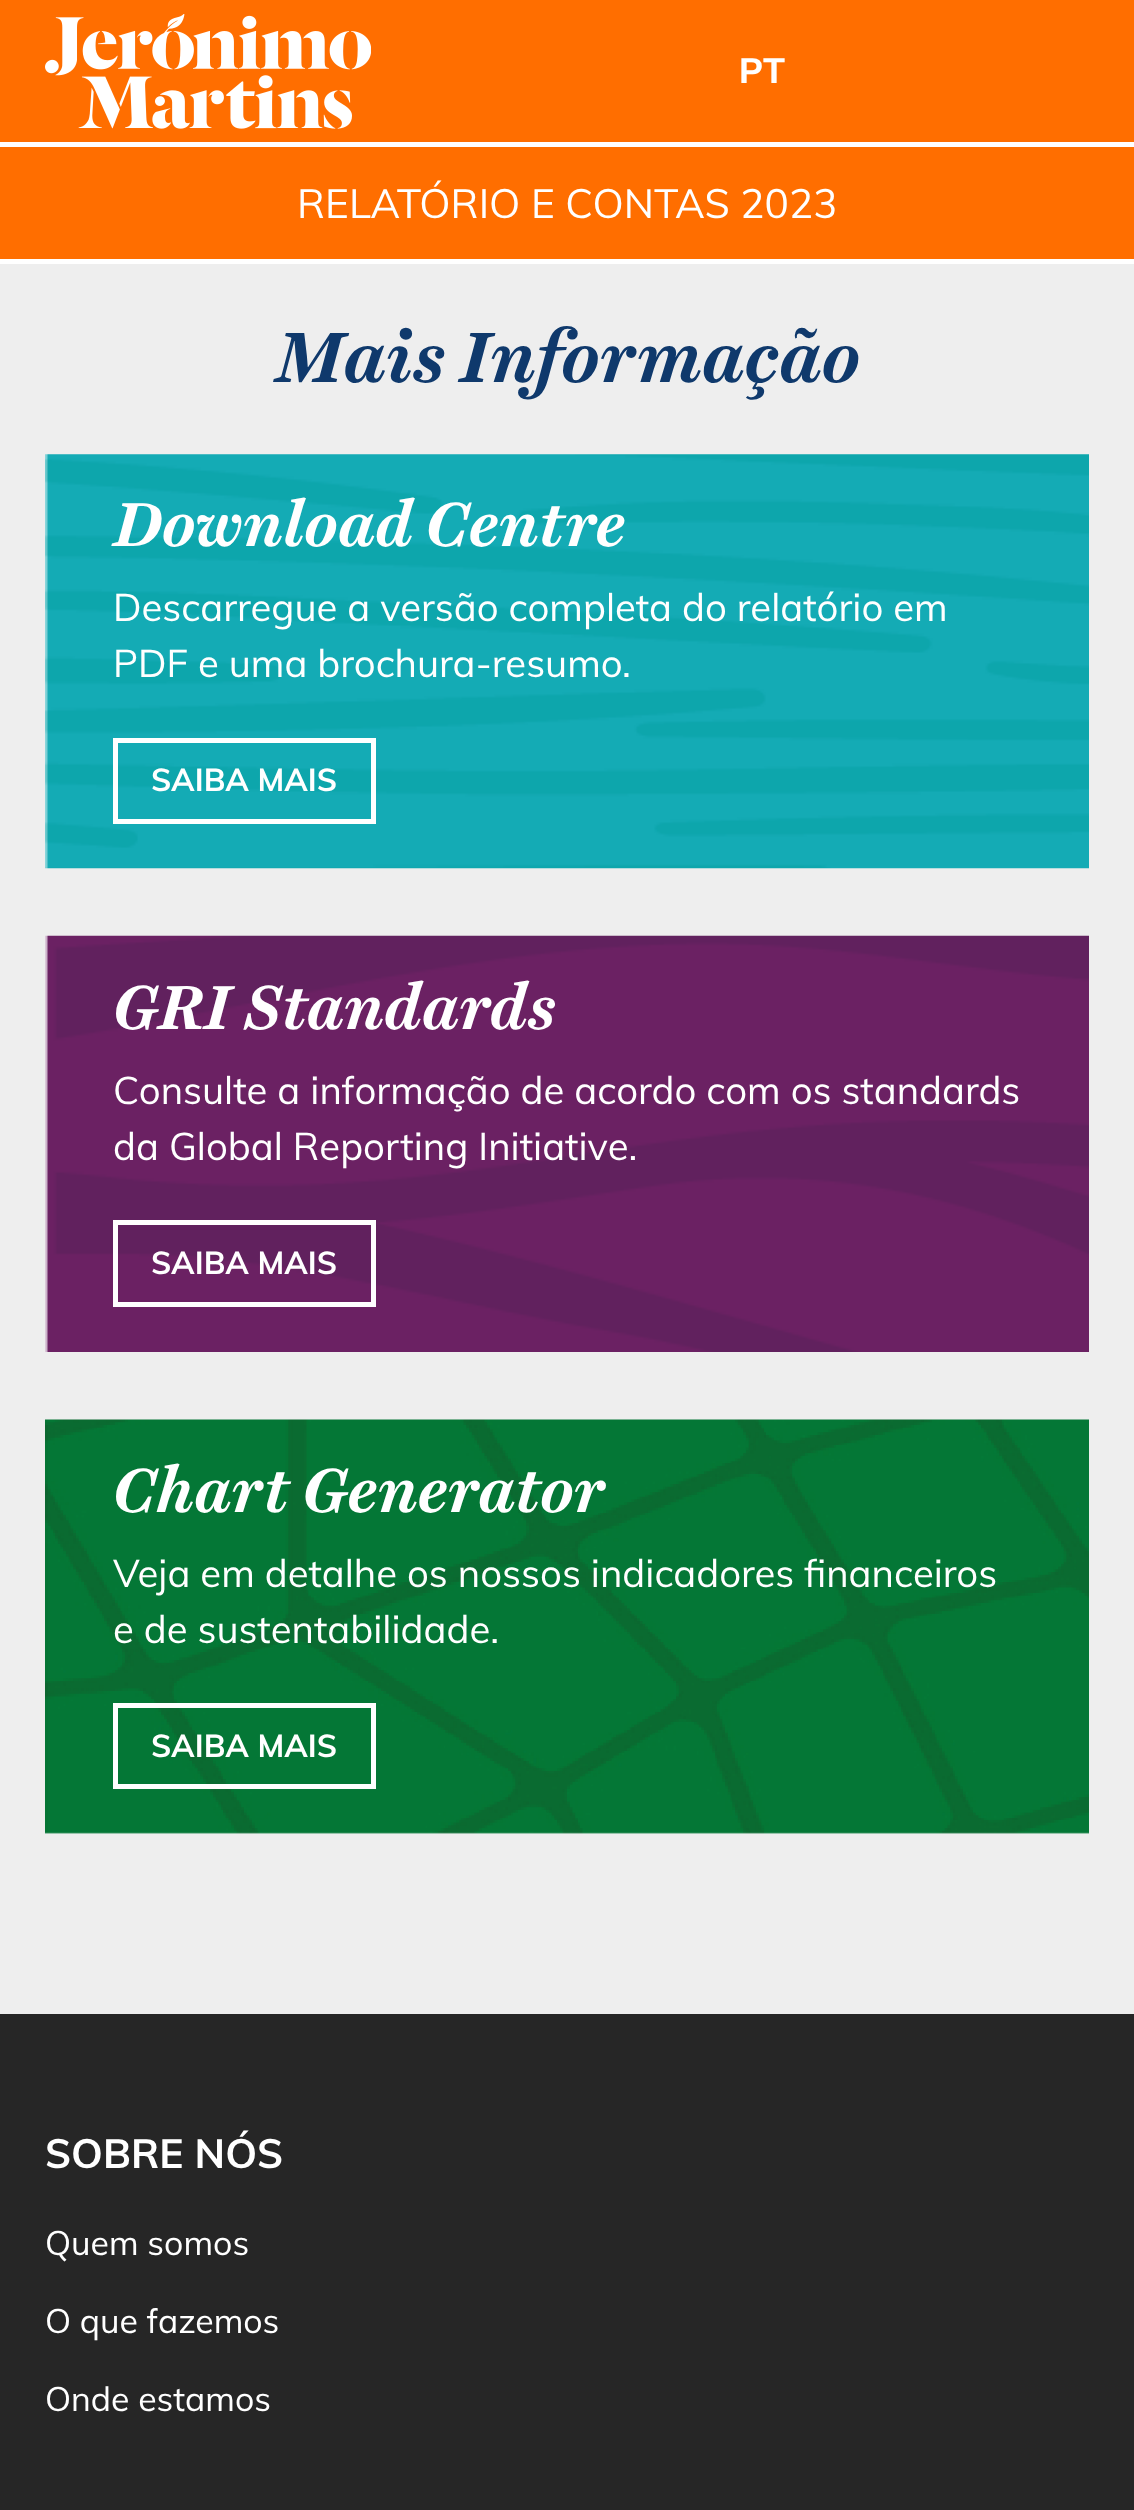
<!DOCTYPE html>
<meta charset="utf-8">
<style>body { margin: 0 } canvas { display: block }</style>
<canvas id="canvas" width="1134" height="2510"></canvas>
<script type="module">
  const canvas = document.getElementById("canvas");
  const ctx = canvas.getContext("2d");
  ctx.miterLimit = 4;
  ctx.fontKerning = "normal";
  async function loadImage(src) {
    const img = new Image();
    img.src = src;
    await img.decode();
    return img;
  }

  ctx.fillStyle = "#eeeeee";
  ctx.fillRect(0, 0, 1134, 2510);
  ctx.fillStyle = "#ff6e00";
  ctx.fillRect(0, 0, 1134, 259);
  ctx.fillStyle = "#ffffff";
  ctx.fillRect(0, 259, 1134, 5);
  ctx.fillRect(0, 142, 1134, 5);
  ctx.drawImage(await loadImage("img1.png"), 45, 14, 326, 115);
  ctx.font = "bold 36px Liberation Sans";
  ctx.fillText("PT", 739, 83);
  ctx.font = "40.5px Mulish";
  ctx.fillText("RELATÓRIO E CONTAS 2023", 297, 218);
  ctx.font = "italic bold 72px 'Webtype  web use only'";
  ctx.fillStyle = "#0f396c";
  ctx.fillText("Mais Informação", 275, 382);
  ctx.drawImage(await loadImage("img2.png"), 45, 454, 1044, 415);
  ctx.font = "italic bold 63px 'Webtype  web use only'";
  ctx.fillStyle = "#ffffff";
  ctx.fillText("Download Centre", 113, 546);
  ctx.font = "38.25px Mulish";
  ctx.fillText("Descarregue a versão completa do relatório em", 113, 621);
  ctx.fillText("PDF e uma brochura-resumo.", 113, 677);
  ctx.strokeStyle = "#ffffff";
  ctx.lineWidth = 5;
  ctx.strokeRect(115.5, 740.5, 258, 81);
  ctx.font = "bold 31.5px Mulish";
  ctx.fillText("SAIBA MAIS", 151, 791);
  ctx.drawImage(await loadImage("img3.png"), 45, 935, 1044, 417);
  ctx.font = "italic bold 63px 'Webtype  web use only'";
  ctx.fillText("GRI Standards", 113, 1029);
  ctx.font = "38.25px Mulish";
  ctx.fillText("Consulte a informação de acordo com os standards", 113, 1104);
  ctx.fillText("da Global Reporting Initiative.", 113, 1160);
  ctx.strokeRect(115.5, 1222.5, 258, 82);
  ctx.font = "bold 31.5px Mulish";
  ctx.fillText("SAIBA MAIS", 151, 1274);
  ctx.drawImage(await loadImage("img4.png"), 45, 1419, 1044, 415);
  ctx.font = "italic bold 63px 'Webtype  web use only'";
  ctx.fillText("Chart Generator", 113, 1512);
  ctx.font = "38.25px Mulish";
  ctx.fillText("Veja em detalhe os nossos indicadores financeiros", 113, 1587);
  ctx.fillText("e de sustentabilidade.", 113, 1643);
  ctx.strokeRect(115.5, 1705.5, 258, 81);
  ctx.font = "bold 31.5px Mulish";
  ctx.fillText("SAIBA MAIS", 151, 1757);
  ctx.fillStyle = "#262626";
  ctx.fillRect(0, 2014, 1134, 496);
  ctx.font = "bold 40.5px Mulish";
  ctx.fillStyle = "#ffffff";
  ctx.fillText("SOBRE NÓS", 45, 2168);
  ctx.font = "33.75px Mulish";
  ctx.fillText("Quem somos", 45, 2255);
  ctx.fillText("O que fazemos", 45, 2333);
  ctx.fillText("Onde estamos", 45, 2411);
</script>
